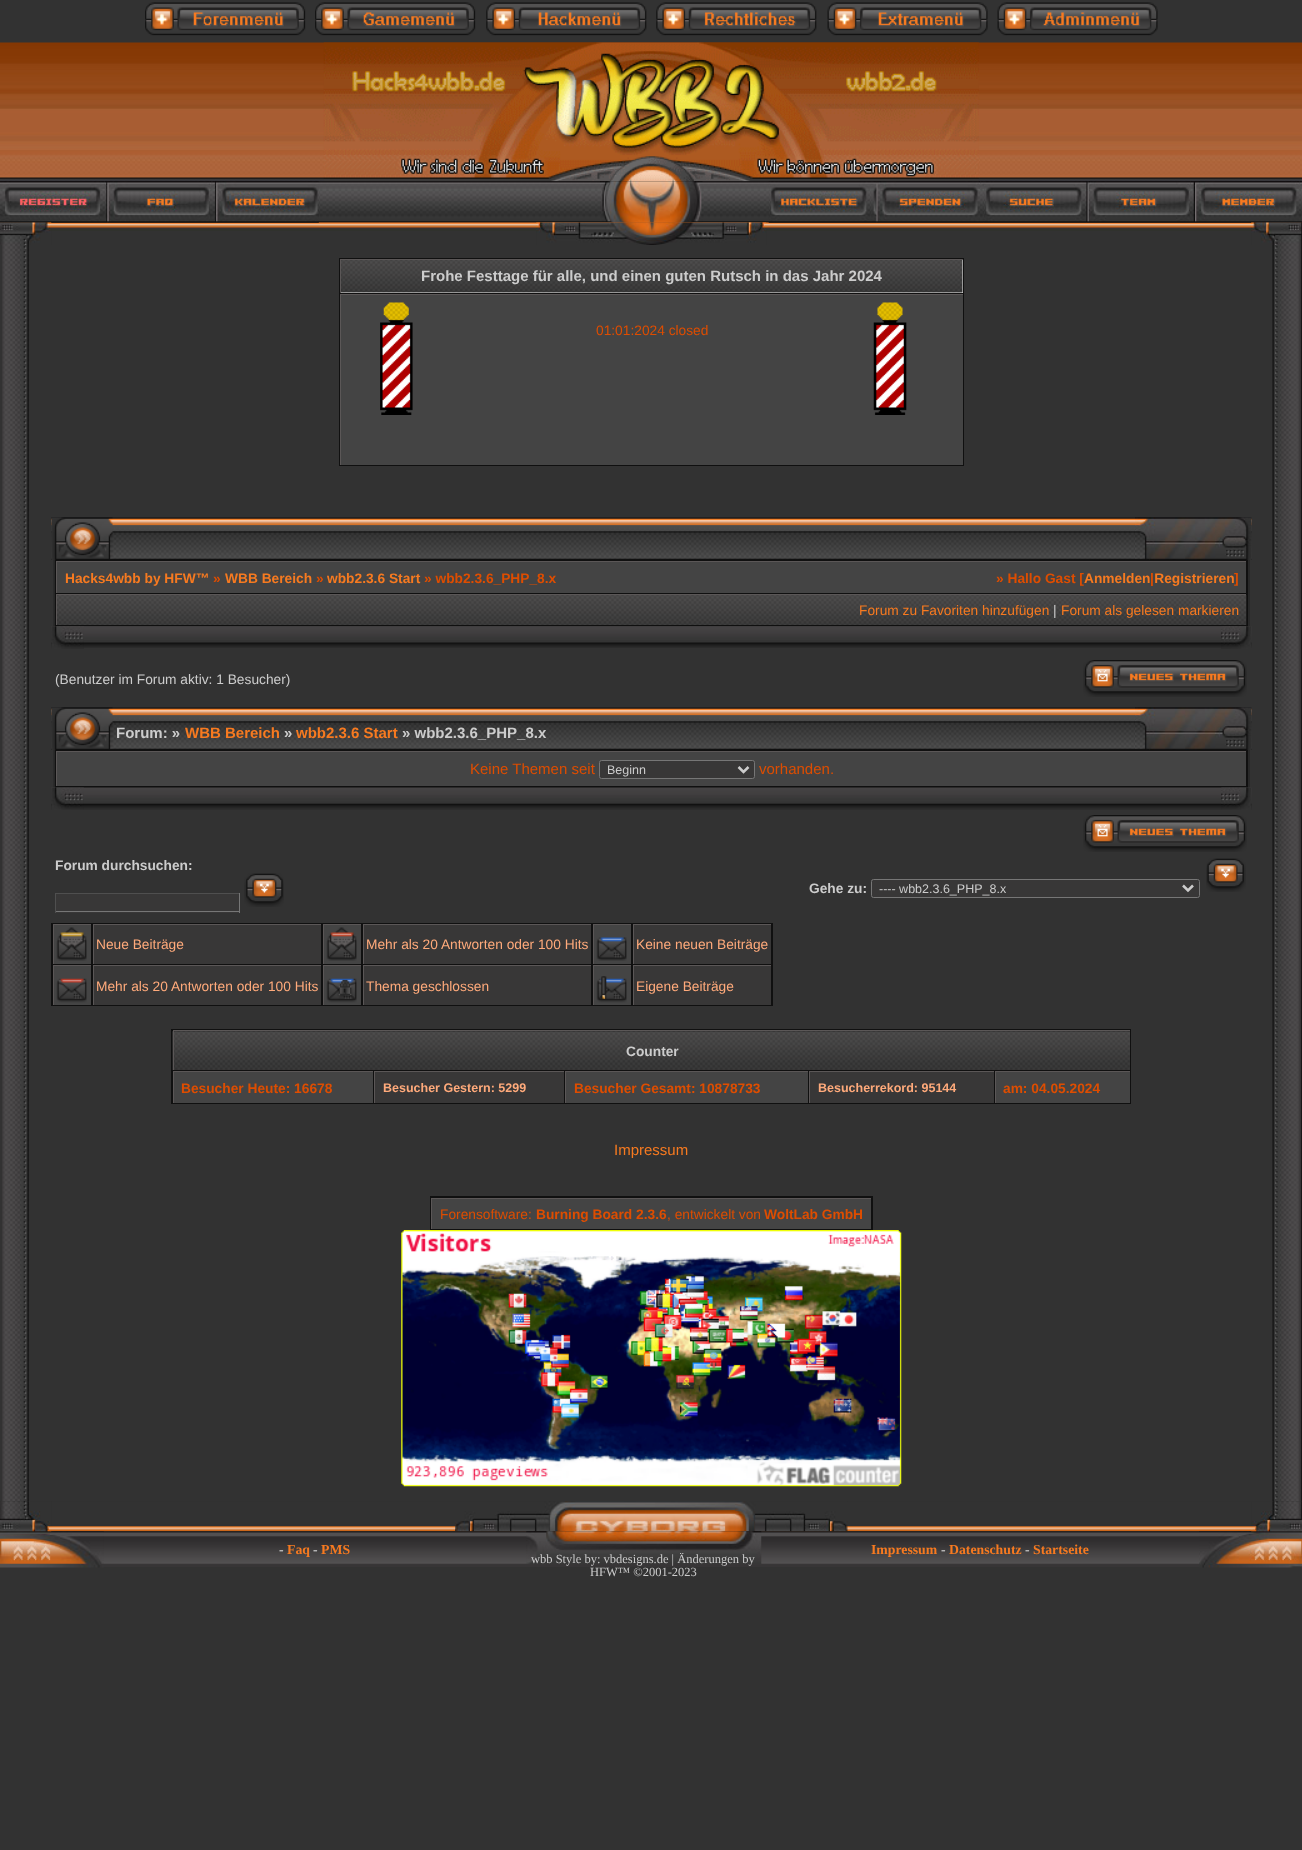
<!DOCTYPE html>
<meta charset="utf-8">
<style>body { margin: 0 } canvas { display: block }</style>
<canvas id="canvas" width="1302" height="1850"></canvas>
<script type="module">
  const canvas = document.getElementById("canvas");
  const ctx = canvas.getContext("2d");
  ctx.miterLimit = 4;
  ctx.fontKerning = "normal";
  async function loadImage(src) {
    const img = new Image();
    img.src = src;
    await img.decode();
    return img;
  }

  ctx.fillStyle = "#323232";
  ctx.fillRect(0, 0, 1302, 1850);
  ctx.drawImage(await loadImage("img1.png"), 145, 2, 161, 34);
  ctx.drawImage(await loadImage("img2.png"), 315, 2, 161, 34);
  ctx.drawImage(await loadImage("img3.png"), 486, 2, 161, 34);
  ctx.drawImage(await loadImage("img4.png"), 656, 2, 161, 34);
  ctx.drawImage(await loadImage("img5.png"), 827, 2, 161, 34);
  ctx.drawImage(await loadImage("img6.png"), 997, 2, 161, 34);
  ctx.drawImage(await loadImage("img7.png"), 0, 42, 1302, 139);
  ctx.drawImage(await loadImage("img8.png"), 323, 42, 656, 140);
  ctx.drawImage(await loadImage("img9.png"), 0, 181, 1302, 42);
  ctx.drawImage(await loadImage("img16.png"), 600, 181, 103, 42);
  ctx.drawImage(await loadImage("img26.png"), 0, 222, 1252, 9);
  ctx.drawImage(await loadImage("img10.png"), 0, 181, 108, 42);
  ctx.drawImage(await loadImage("img11.png"), 0, 182, 108, 41);
  ctx.drawImage(await loadImage("img12.png"), 107, 181, 110, 42);
  ctx.drawImage(await loadImage("img13.png"), 107, 182, 110, 41);
  ctx.drawImage(await loadImage("img14.png"), 216, 181, 103, 42);
  ctx.drawImage(await loadImage("img15.png"), 216, 182, 103, 41);
  ctx.drawImage(await loadImage("img23.png"), 1086, 181, 109, 42);
  ctx.drawImage(await loadImage("img24.png"), 1086, 182, 109, 41);
  ctx.drawImage(await loadImage("img21.png"), 983, 181, 104, 42);
  ctx.drawImage(await loadImage("img22.png"), 983, 182, 104, 41);
  ctx.drawImage(await loadImage("img19.png"), 876, 181, 108, 42);
  ctx.drawImage(await loadImage("img20.png"), 876, 184, 108, 39);
  ctx.drawImage(await loadImage("img17.png"), 768, 181, 109, 42);
  ctx.drawImage(await loadImage("img18.png"), 768, 184, 109, 39);
  ctx.drawImage(await loadImage("img25.png"), 1195, 181, 107, 41);
  ctx.fillStyle = "#2f1f14";
  ctx.fillRect(1195, 222, 107, 1);
  ctx.drawImage(await loadImage("img27.png"), 0, 222, 52, 23);
  ctx.drawImage(await loadImage("img28.png"), 536, 222, 231, 23);
  ctx.drawImage(await loadImage("img29.png"), 1251, 222, 51, 23);
  ctx.drawImage(await loadImage("img30.png"), 2, 245, 27, 1257);
  ctx.drawImage(await loadImage("img31.png"), 1272, 245, 30, 1257);
  ctx.fillStyle = "#101010";
  ctx.fillRect(339, 258, 625, 208);
  ctx.fillStyle = "#f7f7f7";
  ctx.fillRect(341, 260, 622, 33);
  ctx.drawImage(await loadImage("img32.png"), 341, 260, 622, 33);
  ctx.fillStyle = "#5b5757";
  ctx.fillRect(340, 259, 623, 1);
  ctx.fillRect(340, 259, 1, 34);
  ctx.font = "bold 15px Liberation Sans";
  ctx.fillStyle = "#cccccc";
  ctx.fillText("Frohe Festtage für alle, und einen guten Rutsch in das Jahr 2024", 421, 281);
  ctx.fillStyle = "#444444";
  ctx.fillRect(341, 295, 622, 170);
  ctx.fillStyle = "#5b5757";
  ctx.fillRect(340, 294, 623, 1);
  ctx.fillRect(340, 294, 1, 171);
  ctx.drawImage(await loadImage("img33.png"), 380, 302, 33, 113);
  ctx.font = "13.75px Liberation Sans";
  ctx.fillStyle = "#de4d00";
  ctx.fillText("01:01:2024 closed", 596, 335);
  ctx.drawImage(await loadImage("img34.png"), 873, 302, 34, 113);
  ctx.drawImage(await loadImage("img35.png"), 51, 517, 1201, 43);
  ctx.drawImage(await loadImage("img36.png"), 51, 517, 62, 43);
  ctx.drawImage(await loadImage("img37.png"), 1135, 517, 117, 43);
  ctx.drawImage(await loadImage("img38.png"), 53, 560, 2, 66);
  ctx.fillStyle = "#292929";
  ctx.fillRect(1248, 560, 2, 66);
  ctx.fillStyle = "#101010";
  ctx.fillRect(55, 560, 1193, 66);
  ctx.fillStyle = "#444444";
  ctx.fillRect(57, 562, 1189, 31);
  ctx.fillStyle = "#5b5757";
  ctx.fillRect(56, 561, 1190, 1);
  ctx.fillRect(56, 561, 1, 32);
  ctx.font = "bold 13.75px Liberation Sans";
  ctx.fillStyle = "#f77a20";
  ctx.fillText("Hacks4wbb by HFW™", 65, 583);
  ctx.fillStyle = "#de4d00";
  ctx.fillText("»", 213, 583);
  ctx.fillStyle = "#f77a20";
  ctx.fillText("WBB Bereich", 225, 583);
  ctx.fillStyle = "#de4d00";
  ctx.fillText("»", 316, 583);
  ctx.fillStyle = "#f77a20";
  ctx.fillText("wbb2.3.6 Start", 327, 583);
  ctx.fillStyle = "#de4d00";
  ctx.fillText("» wbb2.3.6_PHP_8.x", 424, 583);
  ctx.fillText("» Hallo Gast [", 996, 583);
  ctx.fillStyle = "#f77a20";
  ctx.fillText("Anmelden Registrieren", 1084, 583);
  ctx.fillStyle = "#de4d00";
  ctx.fillText("|", 1150, 583);
  ctx.fillText("]", 1234, 583);
  ctx.drawImage(await loadImage("img39.png"), 57, 595, 1190, 30);
  ctx.fillStyle = "#5b5757";
  ctx.fillRect(56, 594, 1190, 1);
  ctx.fillRect(56, 594, 1, 31);
  ctx.font = "13.75px Liberation Sans";
  ctx.fillStyle = "#f77a20";
  ctx.fillText("Forum zu Favoriten hinzufügen", 859, 615);
  ctx.fillStyle = "#cccccc";
  ctx.fillText("|", 1053, 615);
  ctx.fillStyle = "#f77a20";
  ctx.fillText("Forum als gelesen markieren", 1061, 615);
  ctx.drawImage(await loadImage("img40.png"), 51, 626, 1201, 22);
  ctx.drawImage(await loadImage("img41.png"), 51, 626, 33, 23);
  ctx.drawImage(await loadImage("img42.png"), 1221, 626, 30, 23);
  ctx.fillStyle = "#cccccc";
  ctx.fillText("(Benutzer im Forum aktiv: 1 Besucher)", 55, 684);
  ctx.drawImage(await loadImage("img43.png"), 1083, 660, 164, 37);
  ctx.drawImage(await loadImage("img44.png"), 51, 707, 1201, 43);
  ctx.drawImage(await loadImage("img45.png"), 51, 707, 62, 43);
  ctx.drawImage(await loadImage("img37.png"), 1135, 707, 117, 43);
  ctx.font = "bold 15px Liberation Sans";
  ctx.fillText("Forum: »", 116, 738);
  ctx.fillStyle = "#f77a20";
  ctx.fillText("WBB Bereich", 185, 738);
  ctx.fillStyle = "#cccccc";
  ctx.fillText("»", 284, 738);
  ctx.fillStyle = "#f77a20";
  ctx.fillText("wbb2.3.6 Start", 296, 738);
  ctx.fillStyle = "#cccccc";
  ctx.fillText("» wbb2.3.6_PHP_8.x", 402, 738);
  ctx.drawImage(await loadImage("img46.png"), 53, 750, 2, 38);
  ctx.fillStyle = "#292929";
  ctx.fillRect(1248, 750, 2, 38);
  ctx.fillStyle = "#101010";
  ctx.fillRect(55, 750, 1193, 38);
  ctx.fillStyle = "#444444";
  ctx.fillRect(57, 752, 1189, 34);
  ctx.fillStyle = "#5b5757";
  ctx.fillRect(56, 751, 1190, 1);
  ctx.fillRect(56, 751, 1, 35);
  ctx.font = "15px Liberation Sans";
  ctx.fillStyle = "#de4d00";
  ctx.fillText("Keine Themen seit", 470, 774);
  ctx.fillStyle = "#383737";
  ctx.beginPath();
  ctx.roundRect(599.5, 760.5, 155, 18, 2);
  ctx.fill();
  ctx.strokeStyle = "#767676";
  ctx.stroke();
  ctx.beginPath();
  ctx.moveTo(738.5, 767);
  ctx.lineTo(743.5, 772);
  ctx.lineTo(748.5, 767);
  ctx.strokeStyle = "#cccccc";
  ctx.lineWidth = 2.5;
  ctx.stroke();
  ctx.font = "12.5px Liberation Sans";
  ctx.fillStyle = "#cccccc";
  ctx.fillText("Beginn", 607, 774);
  ctx.font = "15px Liberation Sans";
  ctx.fillStyle = "#de4d00";
  ctx.fillText("vorhanden.", 759, 774);
  ctx.drawImage(await loadImage("img47.png"), 51, 787, 1201, 23);
  ctx.drawImage(await loadImage("img48.png"), 51, 787, 33, 23);
  ctx.drawImage(await loadImage("img49.png"), 1221, 787, 30, 23);
  ctx.drawImage(await loadImage("img43.png"), 1083, 815, 164, 37);
  ctx.font = "bold 13.75px Liberation Sans";
  ctx.fillStyle = "#cccccc";
  ctx.fillText("Forum durchsuchen:", 55, 870);
  ctx.fillStyle = "#383737";
  ctx.fillRect(56, 894, 183, 19);
  ctx.fillStyle = "#4f4f4f";
  ctx.fillRect(55, 893, 185, 1);
  ctx.fillStyle = "#767676";
  ctx.fillRect(239, 893, 1, 20);
  ctx.fillRect(55, 911, 185, 1);
  ctx.fillStyle = "#4f4f4f";
  ctx.fillRect(55, 893, 1, 20);
  ctx.drawImage(await loadImage("img50.png"), 244, 873, 40, 34);
  ctx.fillStyle = "#cccccc";
  ctx.fillText("Gehe zu:", 809, 893);
  ctx.fillStyle = "#383737";
  ctx.beginPath();
  ctx.roundRect(871.5, 879.5, 328, 18, 2);
  ctx.fill();
  ctx.strokeStyle = "#767676";
  ctx.lineWidth = 1;
  ctx.stroke();
  ctx.beginPath();
  ctx.moveTo(1183, 885.5);
  ctx.lineTo(1188, 890.5);
  ctx.lineTo(1193, 885.5);
  ctx.strokeStyle = "#cccccc";
  ctx.lineWidth = 2.5;
  ctx.stroke();
  ctx.font = "12.5px Liberation Sans";
  ctx.fillStyle = "#cccccc";
  ctx.fillText("---- wbb2.3.6_PHP_8.x", 879, 893);
  ctx.drawImage(await loadImage("img51.png"), 1206, 858, 40, 34);
  ctx.fillStyle = "#101010";
  ctx.fillRect(51, 923, 722, 83);
  ctx.fillStyle = "#444444";
  ctx.fillRect(54, 925, 37, 39);
  ctx.fillStyle = "#5b5757";
  ctx.fillRect(53, 924, 38, 1);
  ctx.fillRect(53, 924, 1, 40);
  ctx.drawImage(await loadImage("img52.png"), 56, 927, 31, 34);
  ctx.fillStyle = "#383737";
  ctx.fillRect(94, 925, 227, 39);
  ctx.fillStyle = "#5b5757";
  ctx.fillRect(93, 924, 228, 1);
  ctx.fillRect(93, 924, 1, 40);
  ctx.font = "13.75px Liberation Sans";
  ctx.fillStyle = "#ffaa7b";
  ctx.fillText("Neue Beiträge", 96, 949);
  ctx.fillStyle = "#444444";
  ctx.fillRect(324, 925, 37, 39);
  ctx.fillStyle = "#5b5757";
  ctx.fillRect(323, 924, 38, 1);
  ctx.fillRect(323, 924, 1, 40);
  ctx.drawImage(await loadImage("img53.png"), 326, 927, 31, 34);
  ctx.fillStyle = "#383737";
  ctx.fillRect(364, 925, 227, 39);
  ctx.fillStyle = "#5b5757";
  ctx.fillRect(363, 924, 228, 1);
  ctx.fillRect(363, 924, 1, 40);
  ctx.fillStyle = "#ffaa7b";
  ctx.fillText("Mehr als 20 Antworten oder 100 Hits", 366, 949);
  ctx.fillStyle = "#444444";
  ctx.fillRect(594, 925, 37, 39);
  ctx.fillStyle = "#5b5757";
  ctx.fillRect(593, 924, 38, 1);
  ctx.fillRect(593, 924, 1, 40);
  ctx.drawImage(await loadImage("img54.png"), 596, 937, 31, 24);
  ctx.fillStyle = "#383737";
  ctx.fillRect(634, 925, 137, 39);
  ctx.fillStyle = "#5b5757";
  ctx.fillRect(633, 924, 138, 1);
  ctx.fillRect(633, 924, 1, 40);
  ctx.fillStyle = "#ffaa7b";
  ctx.fillText("Keine neuen Beiträge", 636, 949);
  ctx.fillStyle = "#444444";
  ctx.fillRect(54, 966, 37, 39);
  ctx.fillStyle = "#5b5757";
  ctx.fillRect(53, 965, 38, 1);
  ctx.fillRect(53, 965, 1, 40);
  ctx.drawImage(await loadImage("img55.png"), 56, 978, 31, 25);
  ctx.fillStyle = "#383737";
  ctx.fillRect(94, 966, 227, 39);
  ctx.fillStyle = "#5b5757";
  ctx.fillRect(93, 965, 228, 1);
  ctx.fillRect(93, 965, 1, 40);
  ctx.fillStyle = "#ffaa7b";
  ctx.fillText("Mehr als 20 Antworten oder 100 Hits", 96, 991);
  ctx.fillStyle = "#444444";
  ctx.fillRect(324, 966, 37, 39);
  ctx.fillStyle = "#5b5757";
  ctx.fillRect(323, 965, 38, 1);
  ctx.fillRect(323, 965, 1, 40);
  ctx.drawImage(await loadImage("img56.png"), 326, 978, 31, 25);
  ctx.fillStyle = "#383737";
  ctx.fillRect(364, 966, 227, 39);
  ctx.fillStyle = "#5b5757";
  ctx.fillRect(363, 965, 228, 1);
  ctx.fillRect(363, 965, 1, 40);
  ctx.fillStyle = "#ffaa7b";
  ctx.fillText("Thema geschlossen", 366, 991);
  ctx.fillStyle = "#444444";
  ctx.fillRect(594, 966, 37, 39);
  ctx.fillStyle = "#5b5757";
  ctx.fillRect(593, 965, 38, 1);
  ctx.fillRect(593, 965, 1, 40);
  ctx.drawImage(await loadImage("img57.png"), 596, 976, 31, 27);
  ctx.fillStyle = "#383737";
  ctx.fillRect(634, 966, 137, 39);
  ctx.fillStyle = "#5b5757";
  ctx.fillRect(633, 965, 138, 1);
  ctx.fillRect(633, 965, 1, 40);
  ctx.fillStyle = "#ffaa7b";
  ctx.fillText("Eigene Beiträge", 636, 991);
  ctx.fillStyle = "#101010";
  ctx.fillRect(171, 1029, 960, 75);
  ctx.drawImage(await loadImage("img58.png"), 172, 1031, 958, 39);
  ctx.fillStyle = "#5b5757";
  ctx.fillRect(173, 1030, 957, 1);
  ctx.fillRect(173, 1030, 1, 40);
  ctx.font = "bold 13.75px Liberation Sans";
  ctx.fillStyle = "#cccccc";
  ctx.fillText("Counter", 626, 1056);
  ctx.fillStyle = "#444444";
  ctx.fillRect(174, 1072, 199, 31);
  ctx.fillStyle = "#5b5757";
  ctx.fillRect(173, 1071, 200, 1);
  ctx.fillRect(173, 1071, 1, 32);
  ctx.fillStyle = "#de4d00";
  ctx.fillText("Besucher Heute: 16678", 181, 1093);
  ctx.fillStyle = "#383737";
  ctx.fillRect(375, 1072, 189, 31);
  ctx.fillStyle = "#5b5757";
  ctx.fillRect(374, 1071, 190, 1);
  ctx.fillRect(374, 1071, 1, 32);
  ctx.font = "bold 12.5px Liberation Sans";
  ctx.fillStyle = "#ffaa7b";
  ctx.fillText("Besucher Gestern: 5299", 383, 1092);
  ctx.fillStyle = "#444444";
  ctx.fillRect(566, 1072, 242, 31);
  ctx.fillStyle = "#5b5757";
  ctx.fillRect(565, 1071, 243, 1);
  ctx.fillRect(565, 1071, 1, 32);
  ctx.font = "bold 13.75px Liberation Sans";
  ctx.fillStyle = "#de4d00";
  ctx.fillText("Besucher Gesamt: 10878733", 574, 1093);
  ctx.fillStyle = "#383737";
  ctx.fillRect(810, 1072, 184, 31);
  ctx.fillStyle = "#5b5757";
  ctx.fillRect(809, 1071, 185, 1);
  ctx.fillRect(809, 1071, 1, 32);
  ctx.font = "bold 12.5px Liberation Sans";
  ctx.fillStyle = "#ffaa7b";
  ctx.fillText("Besucherrekord: 95144", 818, 1092);
  ctx.fillStyle = "#444444";
  ctx.fillRect(996, 1072, 134, 31);
  ctx.fillStyle = "#5b5757";
  ctx.fillRect(995, 1071, 135, 1);
  ctx.fillRect(995, 1071, 1, 32);
  ctx.font = "bold 13.75px Liberation Sans";
  ctx.fillStyle = "#de4d00";
  ctx.fillText("am: 04.05.2024", 1003, 1093);
  ctx.font = "15px Liberation Sans";
  ctx.fillStyle = "#f77a20";
  ctx.fillText("Impressum", 614, 1155);
  ctx.fillStyle = "#101010";
  ctx.fillRect(430, 1196, 443, 34);
  ctx.fillStyle = "#444444";
  ctx.fillRect(432, 1199, 439, 30);
  ctx.fillStyle = "#5b5757";
  ctx.fillRect(431, 1198, 440, 1);
  ctx.fillRect(431, 1198, 1, 31);
  ctx.font = "13.75px Liberation Sans";
  ctx.fillStyle = "#de4d00";
  ctx.fillText("Forensoftware:", 440, 1219);
  ctx.font = "bold 13.75px Liberation Sans";
  ctx.fillText("Burning Board 2.3.6", 536, 1219);
  ctx.font = "13.75px Liberation Sans";
  ctx.fillText(", entwickelt von", 667, 1219);
  ctx.font = "bold 13.75px Liberation Sans";
  ctx.fillText("WoltLab GmbH", 764, 1219);
  ctx.drawImage(await loadImage("img59.png"), 401, 1230, 501, 257);
  ctx.drawImage(await loadImage("img60.png"), 0, 1501, 1302, 31);
  ctx.drawImage(await loadImage("img62.png"), 455, 1501, 393, 31);
  ctx.drawImage(await loadImage("img64.png"), 0, 1531, 1302, 36);
  ctx.drawImage(await loadImage("img65.png"), 0, 1531, 104, 37);
  ctx.drawImage(await loadImage("img61.png"), 0, 1501, 52, 31);
  ctx.drawImage(await loadImage("img66.png"), 1199, 1531, 103, 37);
  ctx.drawImage(await loadImage("img63.png"), 1251, 1501, 51, 31);
  ctx.font = "bold 13.75px Liberation Serif";
  ctx.fillStyle = "#cccccc";
  ctx.fillText("-", 279, 1554);
  ctx.fillStyle = "#f77a20";
  ctx.fillText("Faq", 287, 1554);
  ctx.fillStyle = "#cccccc";
  ctx.fillText("-", 313, 1554);
  ctx.fillStyle = "#f77a20";
  ctx.fillText("PMS", 321, 1554);
  ctx.fillText("Impressum", 871, 1554);
  ctx.fillStyle = "#cccccc";
  ctx.fillText("-", 941, 1554);
  ctx.fillStyle = "#f77a20";
  ctx.fillText("Datenschutz", 949, 1554);
  ctx.fillStyle = "#cccccc";
  ctx.fillText("-", 1025, 1554);
  ctx.fillStyle = "#f77a20";
  ctx.fillText("Startseite", 1033, 1554);
  ctx.drawImage(await loadImage("img67.png"), 526, 1531, 236, 33);
  ctx.font = "12.5px Liberation Serif";
  ctx.fillStyle = "#cccccc";
  ctx.fillText("wbb Style by: vbdesigns.de | Änderungen by", 531, 1563);
  ctx.fillText("HFW™ ©2001-2023", 590, 1576);
</script>
